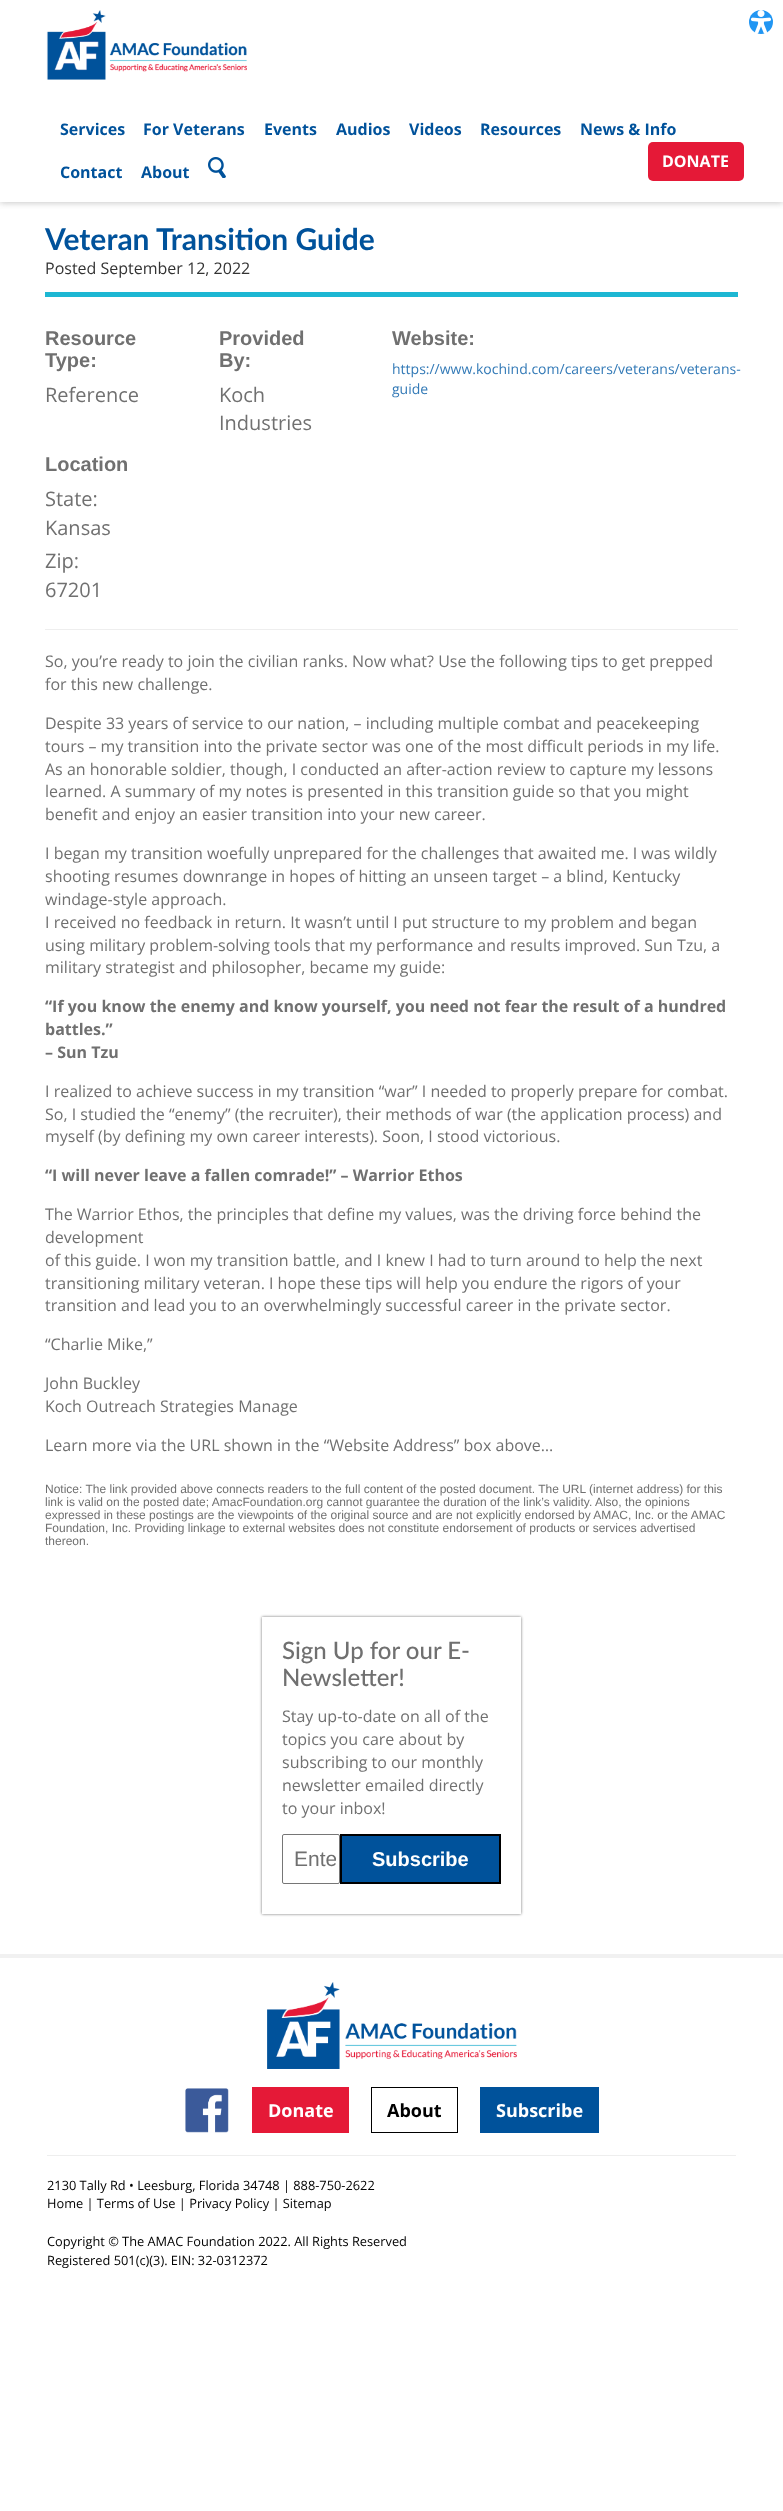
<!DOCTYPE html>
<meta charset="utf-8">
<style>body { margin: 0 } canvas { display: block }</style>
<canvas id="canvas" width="783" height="2511"></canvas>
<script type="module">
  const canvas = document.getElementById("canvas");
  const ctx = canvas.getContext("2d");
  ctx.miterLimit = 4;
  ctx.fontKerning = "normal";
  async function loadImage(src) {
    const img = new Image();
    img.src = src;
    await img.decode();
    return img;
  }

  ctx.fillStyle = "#ffffff";
  ctx.fillRect(0, 0, 783, 2511);
  ctx.save();
  ctx.beginPath();
  ctx.rect(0, 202, 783, 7);
  ctx.clip();
  ctx.fillStyle = "#c9c9c9";
  ctx.filter = "blur(3px)";
  ctx.beginPath();
  ctx.rect(0, 1, 783, 202);
  ctx.fill();
  ctx.filter = "none";
  ctx.restore();
  ctx.fillStyle = "#2196f3";
  ctx.beginPath();
  ctx.arc(761, 22, 12, 0, Math.PI * 2);
  ctx.fill();
  ctx.drawImage(await loadImage("img1.png"), 751, 10, 20, 24);
  ctx.drawImage(await loadImage("img2.png"), 46, 10, 201, 70);
  ctx.font = "bold 16px Open Sans";
  ctx.fillStyle = "#00529b";
  ctx.fillText("Services", 60, 135);
  ctx.fillText("For Veterans", 143, 135);
  ctx.fillText("Events", 264, 135);
  ctx.fillText("Audios", 336, 135);
  ctx.fillText("Videos", 409, 135);
  ctx.fillText("Resources", 480, 135);
  ctx.fillText("News & Info", 580, 135);
  ctx.fillText("Contact", 60, 178);
  ctx.fillText("About", 141, 178);
  ctx.drawImage(await loadImage("img3.png"), 208, 157, 18, 21);
  ctx.fillStyle = "#e51937";
  ctx.beginPath();
  ctx.roundRect(648, 142, 96, 39, 5);
  ctx.fill();
  ctx.fillStyle = "#ffffff";
  ctx.fillText("DONATE", 662, 167);
  ctx.fillStyle = "#1db7d3";
  ctx.fillRect(45, 292, 693, 5);
  ctx.font = "bold 30px Lato";
  ctx.fillStyle = "#00529b";
  ctx.fillText("Veteran Transition Guide", 45, 250);
  ctx.font = "16px Open Sans";
  ctx.fillStyle = "#333333";
  ctx.fillText("Posted September 12, 2022", 45, 274);
  ctx.font = "bold 20px Liberation Sans";
  ctx.fillStyle = "#707070";
  ctx.fillText("Resource", 45, 345);
  ctx.fillText("Type:", 45, 367);
  ctx.font = "20px Open Sans";
  ctx.fillText("Reference", 45, 402);
  ctx.font = "bold 20px Liberation Sans";
  ctx.fillText("Provided", 219, 345);
  ctx.fillText("By:", 219, 367);
  ctx.font = "20px Open Sans";
  ctx.fillText("Koch", 219, 402);
  ctx.fillText("Industries", 219, 430);
  ctx.font = "bold 20px Liberation Sans";
  ctx.fillText("Website:", 392, 345);
  ctx.font = "14px Open Sans";
  ctx.fillStyle = "#337ab7";
  ctx.fillText("https://www.kochind.com/careers/veterans/veterans-", 392, 374);
  ctx.fillText("guide", 392, 394);
  ctx.font = "bold 20px Liberation Sans";
  ctx.fillStyle = "#707070";
  ctx.fillText("Location", 45, 471);
  ctx.font = "20px Open Sans";
  ctx.fillText("State:", 45, 506);
  ctx.fillText("Kansas", 45, 535);
  ctx.fillText("Zip:", 45, 568);
  ctx.fillText("67201", 45, 597);
  ctx.fillStyle = "#eeeeee";
  ctx.fillRect(45, 629, 693, 1);
  ctx.font = "16px Open Sans";
  ctx.fillStyle = "#707070";
  ctx.fillText("So, you’re ready to join the civilian ranks. Now what? Use the following tips to get prepped", 45, 667);
  ctx.fillText("for this new challenge.", 45, 690);
  ctx.fillText("Despite 33 years of service to our nation, – including multiple combat and peacekeeping", 45, 729);
  ctx.fillText("tours – my transition into the private sector was one of the most difficult periods in my life.", 45, 752);
  ctx.fillText("As an honorable soldier, though, I conducted an after-action review to capture my lessons", 45, 775);
  ctx.fillText("learned. A summary of my notes is presented in this transition guide so that you might", 45, 797);
  ctx.fillText("benefit and enjoy an easier transition into your new career.", 45, 820);
  ctx.fillText("I began my transition woefully unprepared for the challenges that awaited me. I was wildly", 45, 859);
  ctx.fillText("shooting resumes downrange in hopes of hitting an unseen target – a blind, Kentucky", 45, 882);
  ctx.fillText("windage-style approach.", 45, 905);
  ctx.fillText("I received no feedback in return. It wasn’t until I put structure to my problem and began", 45, 928);
  ctx.fillText("using military problem-solving tools that my performance and results improved. Sun Tzu, a", 45, 951);
  ctx.fillText("military strategist and philosopher, became my guide:", 45, 973);
  ctx.font = "bold 16px Open Sans";
  ctx.fillText("“If you know the enemy and know yourself, you need not fear the result of a hundred", 45, 1012);
  ctx.fillText("battles.”", 45, 1035);
  ctx.fillText("– Sun Tzu", 45, 1058);
  ctx.font = "16px Open Sans";
  ctx.fillText("I realized to achieve success in my transition “war” I needed to properly prepare for combat.", 45, 1097);
  ctx.fillText("So, I studied the “enemy” (the recruiter), their methods of war (the application process) and", 45, 1120);
  ctx.fillText("myself (by defining my own career interests). Soon, I stood victorious.", 45, 1142);
  ctx.font = "bold 16px Open Sans";
  ctx.fillText("“I will never leave a fallen comrade!” – Warrior Ethos", 45, 1181);
  ctx.font = "16px Open Sans";
  ctx.fillText("The Warrior Ethos, the principles that define my values, was the driving force behind the", 45, 1220);
  ctx.fillText("development", 45, 1243);
  ctx.fillText("of this guide. I won my transition battle, and I knew I had to turn around to help the next", 45, 1266);
  ctx.fillText("transitioning military veteran. I hope these tips will help you endure the rigors of your", 45, 1289);
  ctx.fillText("transition and lead you to an overwhelmingly successful career in the private sector.", 45, 1311);
  ctx.fillText("“Charlie Mike,”", 45, 1350);
  ctx.fillText("John Buckley", 45, 1389);
  ctx.fillText("Koch Outreach Strategies Manage", 45, 1412);
  ctx.fillText("Learn more via the URL shown in the “Website Address” box above…", 45, 1451);
  ctx.font = "12px Liberation Sans";
  ctx.fillText("Notice: The link provided above connects readers to the full content of the posted document. The URL (internet address) for this", 45, 1493);
  ctx.fillText("link is valid on the posted date; AmacFoundation.org cannot guarantee the duration of the link’s validity. Also, the opinions", 45, 1506);
  ctx.fillText("expressed in these postings are the viewpoints of the original source and are not explicitly endorsed by AMAC, Inc. or the AMAC", 45, 1519);
  ctx.fillText("Foundation, Inc. Providing linkage to external websites does not constitute endorsement of products or services advertised", 45, 1532);
  ctx.fillText("thereon.", 45, 1545);
  ctx.save();
  ctx.beginPath();
  ctx.moveTo(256, 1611);
  ctx.lineTo(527, 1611);
  ctx.lineTo(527, 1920);
  ctx.lineTo(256, 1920);
  ctx.closePath();
  ctx.moveTo(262, 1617);
  ctx.lineTo(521, 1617);
  ctx.lineTo(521, 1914);
  ctx.lineTo(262, 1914);
  ctx.closePath();
  ctx.clip("evenodd");
  ctx.filter = "blur(1.5px)";
  ctx.beginPath();
  ctx.rect(262, 1617, 259, 297);
  ctx.fill();
  ctx.filter = "none";
  ctx.restore();
  ctx.font = "500 24px Lato";
  ctx.fillText("Sign Up for our E-", 282, 1659);
  ctx.fillText("Newsletter!", 282, 1686);
  ctx.font = "16px Open Sans";
  ctx.fillText("Stay up-to-date on all of the", 282, 1722);
  ctx.fillText("topics you care about by", 282, 1745);
  ctx.fillText("subscribing to our monthly", 282, 1768);
  ctx.fillText("newsletter emailed directly", 282, 1791);
  ctx.fillText("to your inbox!", 282, 1814);
  ctx.beginPath();
  ctx.roundRect(282.5, 1834.5, 57, 49, 1.5);
  ctx.strokeStyle = "#767676";
  ctx.stroke();
  ctx.save();
  ctx.beginPath();
  ctx.rect(294, 1847, 42, 25);
  ctx.clip();
  ctx.font = "21px Liberation Sans";
  ctx.fillText("Ente", 294, 1866);
  ctx.restore();
  ctx.fillStyle = "#00529b";
  ctx.beginPath();
  ctx.rect(341, 1835, 159, 48);
  ctx.fill();
  ctx.strokeStyle = "#000000";
  ctx.lineWidth = 2;
  ctx.stroke();
  ctx.font = "bold 20px Liberation Sans";
  ctx.fillStyle = "#ffffff";
  ctx.fillText("Subscribe", 372, 1866);
  ctx.fillStyle = "#f1f1f1";
  ctx.fillRect(0, 1954, 783, 4);
  ctx.drawImage(await loadImage("img4.png"), 267, 1982, 250, 87);
  ctx.drawImage(await loadImage("img5.png"), 185, 2088, 44, 45);
  ctx.fillStyle = "#e51937";
  ctx.fillRect(252, 2087, 97, 46);
  ctx.font = "bold 18px Open Sans";
  ctx.fillStyle = "#ffffff";
  ctx.fillText("Donate", 268, 2117);
  ctx.lineWidth = 1;
  ctx.strokeRect(371.5, 2087.5, 86, 45);
  ctx.fillStyle = "#000000";
  ctx.fillText("About", 387, 2117);
  ctx.fillStyle = "#00529b";
  ctx.fillRect(480, 2087, 119, 46);
  ctx.fillStyle = "#ffffff";
  ctx.fillText("Subscribe", 496, 2117);
  ctx.fillStyle = "#eeeeee";
  ctx.fillRect(47, 2155, 689, 1);
  ctx.font = "12.8px Open Sans";
  ctx.fillStyle = "#000000";
  ctx.fillText("2130 Tally Rd • Leesburg, Florida 34748 | 888-750-2622", 47, 2190);
  ctx.fillText("Home | Terms of Use | Privacy Policy | Sitemap", 47, 2208);
  ctx.fillText("Copyright © The AMAC Foundation 2022. All Rights Reserved", 47, 2246);
  ctx.fillText("Registered 501(c)(3). EIN: 32-0312372", 47, 2265);
</script>
